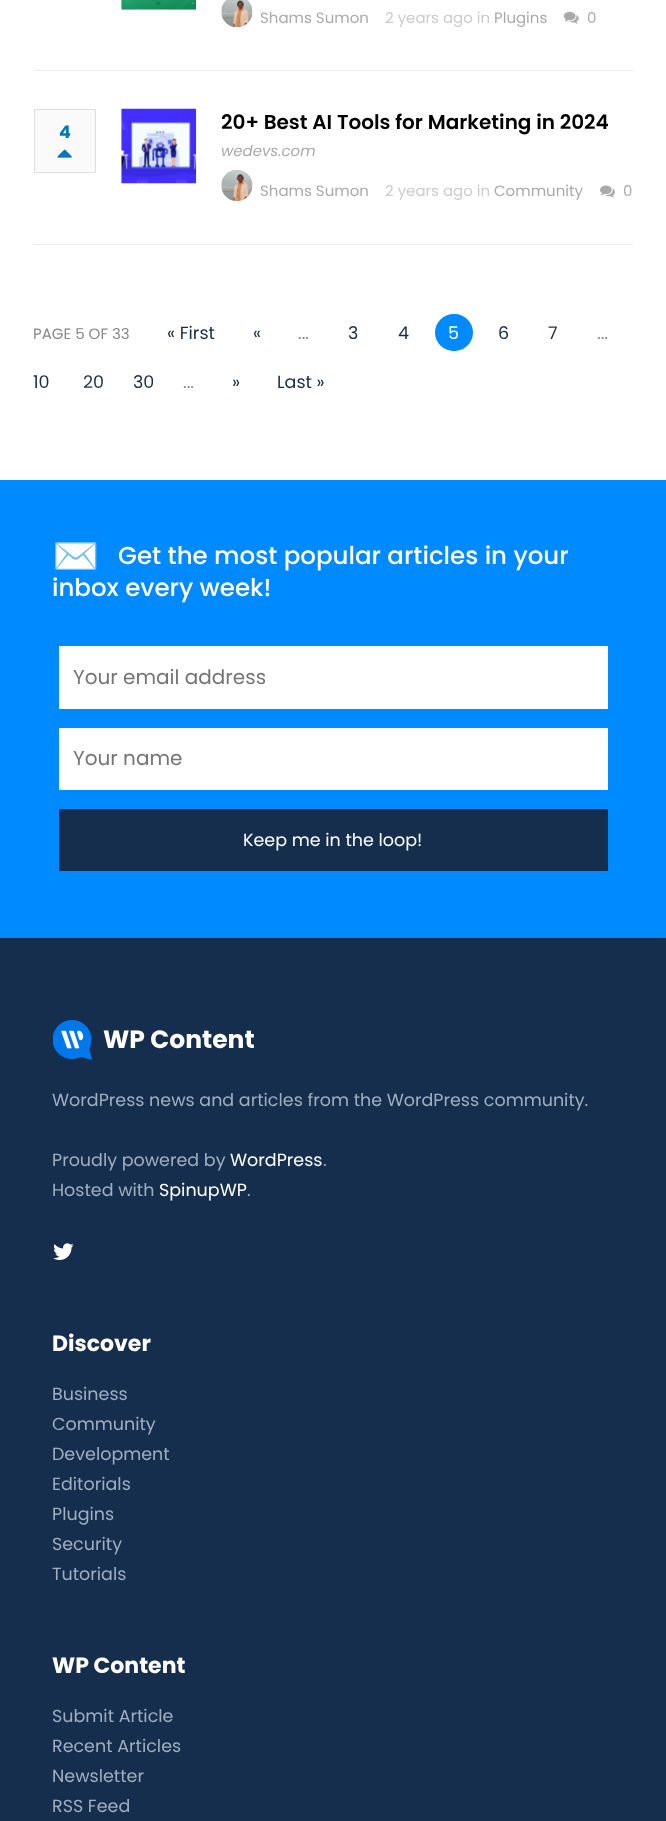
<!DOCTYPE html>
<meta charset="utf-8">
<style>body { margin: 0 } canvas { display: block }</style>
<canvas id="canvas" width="666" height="1821"></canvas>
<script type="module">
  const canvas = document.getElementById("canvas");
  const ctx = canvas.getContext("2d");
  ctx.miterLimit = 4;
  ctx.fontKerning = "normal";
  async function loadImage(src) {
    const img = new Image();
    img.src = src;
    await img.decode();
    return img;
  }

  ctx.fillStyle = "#ffffff";
  ctx.fillRect(0, 0, 666, 1821);
  ctx.fillStyle = "#eeeeee";
  ctx.fillRect(34, 70, 599, 1);
  ctx.drawImage(await loadImage("img1.png"), 121, 0, 76, 10);
  ctx.drawImage(await loadImage("img2.png"), 221, 0, 32, 28);
  ctx.font = "15px Poppins";
  ctx.fillStyle = "#aaaaaa";
  ctx.fillText("Shams Sumon", 260, 23);
  ctx.fillStyle = "#cccccc";
  ctx.fillText("2 years ago in", 385, 23);
  ctx.fillStyle = "#aaaaaa";
  ctx.fillText("Plugins", 494, 23);
  ctx.drawImage(await loadImage("img3.png"), 563, 11, 16, 13);
  ctx.fillText("0", 587, 23);
  ctx.fillStyle = "#eeeeee";
  ctx.fillRect(34, 244, 599, 1);
  ctx.fillStyle = "#fafafa";
  ctx.beginPath();
  ctx.rect(34.5, 109.5, 61, 63);
  ctx.fill();
  ctx.strokeStyle = "#dedede";
  ctx.stroke();
  ctx.font = "bold 17.5px Poppins";
  ctx.fillStyle = "#0277bd";
  ctx.fillText("4", 59, 138);
  ctx.drawImage(await loadImage("img4.png"), 57, 149, 15, 9);
  ctx.drawImage(await loadImage("img5.png"), 121, 108, 76, 76);
  ctx.font = "600 20px Poppins";
  ctx.fillStyle = "#000000";
  ctx.fillText("20+ Best AI Tools for Marketing in 2024", 221, 129);
  ctx.font = "italic 15px Poppins";
  ctx.fillStyle = "#aaaaaa";
  ctx.fillText("wedevs.com", 221, 156);
  ctx.drawImage(await loadImage("img6.png"), 221, 170, 32, 31);
  ctx.font = "15px Poppins";
  ctx.fillText("Shams Sumon", 260, 196);
  ctx.fillStyle = "#cccccc";
  ctx.fillText("2 years ago in", 385, 196);
  ctx.fillStyle = "#aaaaaa";
  ctx.fillText("Community", 494, 196);
  ctx.drawImage(await loadImage("img7.png"), 600, 185, 15, 13);
  ctx.fillText("0", 623, 196);
  ctx.fillStyle = "#888888";
  ctx.fillText("PAGE 5 OF 33", 33, 339);
  ctx.font = "17.5px Poppins";
  ctx.fillStyle = "#152e4d";
  ctx.fillText("« First", 167, 339);
  ctx.fillText("«", 253, 339);
  ctx.fillText("3", 348, 339);
  ctx.fillText("4", 398, 339);
  ctx.fillStyle = "#008aff";
  ctx.beginPath();
  ctx.roundRect(435, 314, 38, 37, 18.5);
  ctx.fill();
  ctx.fillStyle = "#ffffff";
  ctx.fillText("5", 448, 339);
  ctx.fillStyle = "#152e4d";
  ctx.fillText("6", 498, 339);
  ctx.fillText("7", 548, 339);
  ctx.fillStyle = "#888888";
  ctx.fillText("...", 298, 339);
  ctx.fillText("...", 597, 339);
  ctx.fillStyle = "#152e4d";
  ctx.fillText("10", 33, 388);
  ctx.fillText("20", 83, 388);
  ctx.fillText("30", 133, 388);
  ctx.fillText("»", 232, 388);
  ctx.fillText("Last »", 277, 388);
  ctx.fillStyle = "#888888";
  ctx.fillText("...", 183, 388);
  ctx.fillStyle = "#008aff";
  ctx.fillRect(0, 480, 666, 458);
  ctx.font = "38px Noto Color Emoji";
  ctx.fillStyle = "#ffffff";
  ctx.fillText("✉️", 52, 569);
  ctx.font = "500 24.5px Poppins";
  ctx.fillText("Get the most popular articles in your", 118, 564);
  ctx.fillText("inbox every week!", 52, 596);
  ctx.fillRect(59, 646, 549, 63);
  ctx.font = "20px Poppins";
  ctx.fillStyle = "#757575";
  ctx.fillText("Your email address", 73, 684);
  ctx.fillStyle = "#ffffff";
  ctx.fillRect(59, 728, 549, 62);
  ctx.fillStyle = "#757575";
  ctx.fillText("Your name", 73, 765);
  ctx.fillStyle = "#152e4d";
  ctx.fillRect(59, 809, 549, 62);
  ctx.font = "17.5px Poppins";
  ctx.fillStyle = "#ffffff";
  ctx.fillText("Keep me in the loop!", 243, 846);
  ctx.fillStyle = "#152e4d";
  ctx.fillRect(0, 938, 666, 883);
  ctx.drawImage(await loadImage("img8.png"), 53, 1020, 39, 40);
  ctx.font = "bold 25px Poppins";
  ctx.fillStyle = "#ffffff";
  ctx.fillText("WP Content", 103, 1048);
  ctx.font = "17.5px Poppins";
  ctx.fillStyle = "#a0aec0";
  ctx.fillText("WordPress news and articles from the WordPress community.", 52, 1106);
  ctx.fillText("Proudly powered by", 52, 1166);
  ctx.fillStyle = "#ffffff";
  ctx.fillText("WordPress", 230, 1166);
  ctx.fillStyle = "#a0aec0";
  ctx.fillText(".", 323, 1166);
  ctx.fillText("Hosted with", 52, 1196);
  ctx.fillStyle = "#ffffff";
  ctx.fillText("SpinupWP", 159, 1196);
  ctx.fillStyle = "#a0aec0";
  ctx.fillText(".", 247, 1196);
  ctx.drawImage(await loadImage("img9.png"), 53, 1243, 21, 17);
  ctx.font = "bold 22px Poppins";
  ctx.fillStyle = "#ffffff";
  ctx.fillText("Discover", 52, 1351);
  ctx.font = "17.5px Poppins";
  ctx.fillStyle = "#a0aec0";
  ctx.fillText("Business", 52, 1400);
  ctx.fillText("Community", 52, 1430);
  ctx.fillText("Development", 52, 1460);
  ctx.fillText("Editorials", 52, 1490);
  ctx.fillText("Plugins", 52, 1520);
  ctx.fillText("Security", 52, 1550);
  ctx.fillText("Tutorials", 52, 1580);
  ctx.font = "bold 22px Poppins";
  ctx.fillStyle = "#ffffff";
  ctx.fillText("WP Content", 52, 1673);
  ctx.font = "17.5px Poppins";
  ctx.fillStyle = "#a0aec0";
  ctx.fillText("Submit Article", 52, 1722);
  ctx.fillText("Recent Articles", 52, 1752);
  ctx.fillText("Newsletter", 52, 1782);
  ctx.fillText("RSS Feed", 52, 1812);
</script>
